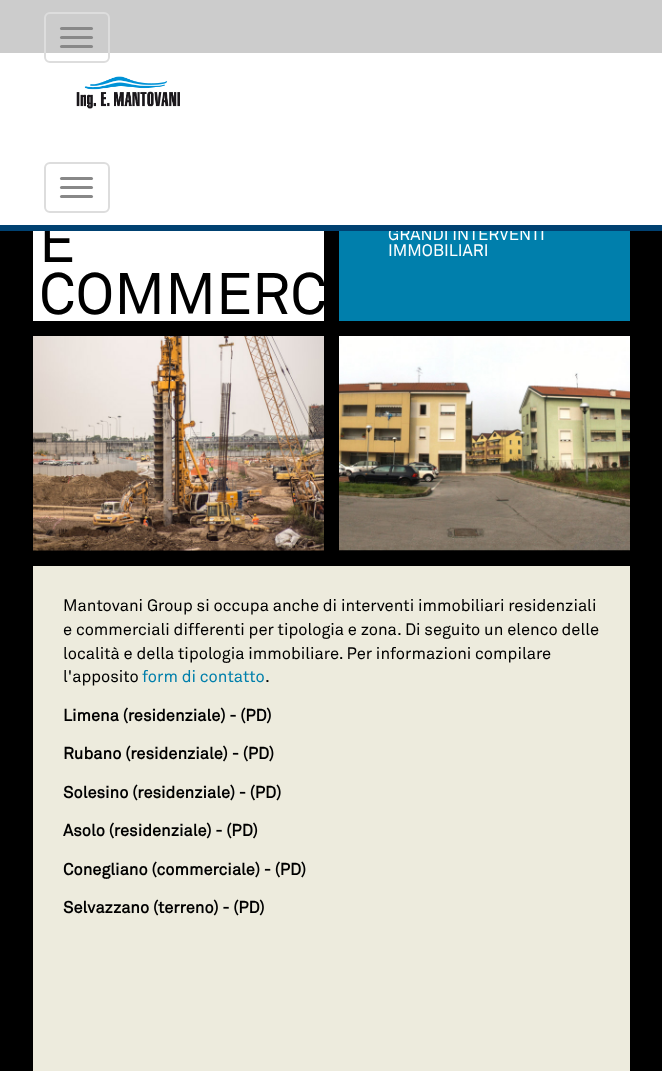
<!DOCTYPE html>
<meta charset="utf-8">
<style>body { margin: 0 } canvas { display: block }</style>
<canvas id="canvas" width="662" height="1071"></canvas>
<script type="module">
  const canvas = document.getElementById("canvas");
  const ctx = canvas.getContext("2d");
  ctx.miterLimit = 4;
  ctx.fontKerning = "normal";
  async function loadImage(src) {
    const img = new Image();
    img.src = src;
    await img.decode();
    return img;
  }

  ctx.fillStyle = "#000000";
  ctx.fillRect(0, 0, 662, 1071);
  ctx.fillStyle = "#ffffff";
  ctx.fillRect(33, 231, 291, 90);
  ctx.font = "57.75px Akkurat";
  ctx.fillStyle = "#000000";
  ctx.fillText("E", 39, 262);
  ctx.fillStyle = "#ffffff";
  ctx.fillRect(0, 53, 662, 172);
  ctx.fillStyle = "#007fac";
  ctx.fillRect(339, 231, 291, 90);
  ctx.font = "16.5px Akkurat";
  ctx.fillStyle = "#ffffff";
  ctx.fillText("GRANDI INTERVENTI", 388, 240);
  ctx.fillStyle = "#004171";
  ctx.fillRect(0, 225, 662, 6);
  ctx.fillStyle = "#cccccc";
  ctx.fillRect(0, 0, 662, 53);
  ctx.beginPath();
  ctx.roundRect(45, 13, 64, 49, 5);
  ctx.strokeStyle = "#dddddd";
  ctx.lineWidth = 2;
  ctx.stroke();
  ctx.fillStyle = "#888888";
  ctx.beginPath();
  ctx.roundRect(60, 27, 33, 3, 1.5);
  ctx.fill();
  ctx.beginPath();
  ctx.roundRect(60, 36, 33, 3, 1.5);
  ctx.fill();
  ctx.beginPath();
  ctx.roundRect(60, 45, 33, 3, 1.5);
  ctx.fill();
  ctx.drawImage(await loadImage("img1.png"), 76, 76, 104, 33);
  ctx.beginPath();
  ctx.roundRect(45, 163, 64, 49, 5);
  ctx.stroke();
  ctx.beginPath();
  ctx.roundRect(60, 177, 33, 3, 1.5);
  ctx.fill();
  ctx.beginPath();
  ctx.roundRect(60, 186, 33, 3, 1.5);
  ctx.fill();
  ctx.beginPath();
  ctx.roundRect(60, 195, 33, 3, 1.5);
  ctx.fill();
  ctx.save();
  ctx.beginPath();
  ctx.rect(33, 107, 291, 214);
  ctx.clip();
  ctx.font = "57.75px Akkurat";
  ctx.fillStyle = "#000000";
  ctx.fillText("COMMERC", 39, 314);
  ctx.restore();
  ctx.fillStyle = "#ffffff";
  ctx.fillText("IMMOBILIARI", 388, 256);
  ctx.drawImage(await loadImage("img2.png"), 33, 336, 291, 215);
  ctx.drawImage(await loadImage("img3.png"), 339, 336, 291, 215);
  ctx.fillStyle = "#edebdd";
  ctx.fillRect(33, 566, 597, 505);
  ctx.fillStyle = "#000000";
  ctx.fillText("Mantovani Group si occupa anche di interventi immobiliari residenziali", 63, 611);
  ctx.fillText("e commerciali differenti per tipologia e zona. Di seguito un elenco delle", 63, 635);
  ctx.fillText("località e della tipologia immobiliare. Per informazioni compilare", 63, 659);
  ctx.fillText("l'apposito", 63, 682);
  ctx.fillStyle = "#007fab";
  ctx.fillText("form di contatto", 142, 682);
  ctx.fillStyle = "#000000";
  ctx.fillText(".", 265, 682);
  ctx.font = "bold 16.5px Akkurat";
  ctx.fillText("Limena (residenziale) - (PD)", 63, 721);
  ctx.fillText("Rubano (residenziale) - (PD)", 63, 759);
  ctx.fillText("Solesino (residenziale) - (PD)", 63, 798);
  ctx.fillText("Asolo (residenziale) - (PD)", 63, 836);
  ctx.fillText("Conegliano (commerciale) - (PD)", 63, 875);
  ctx.fillText("Selvazzano (terreno) - (PD)", 63, 913);
</script>
